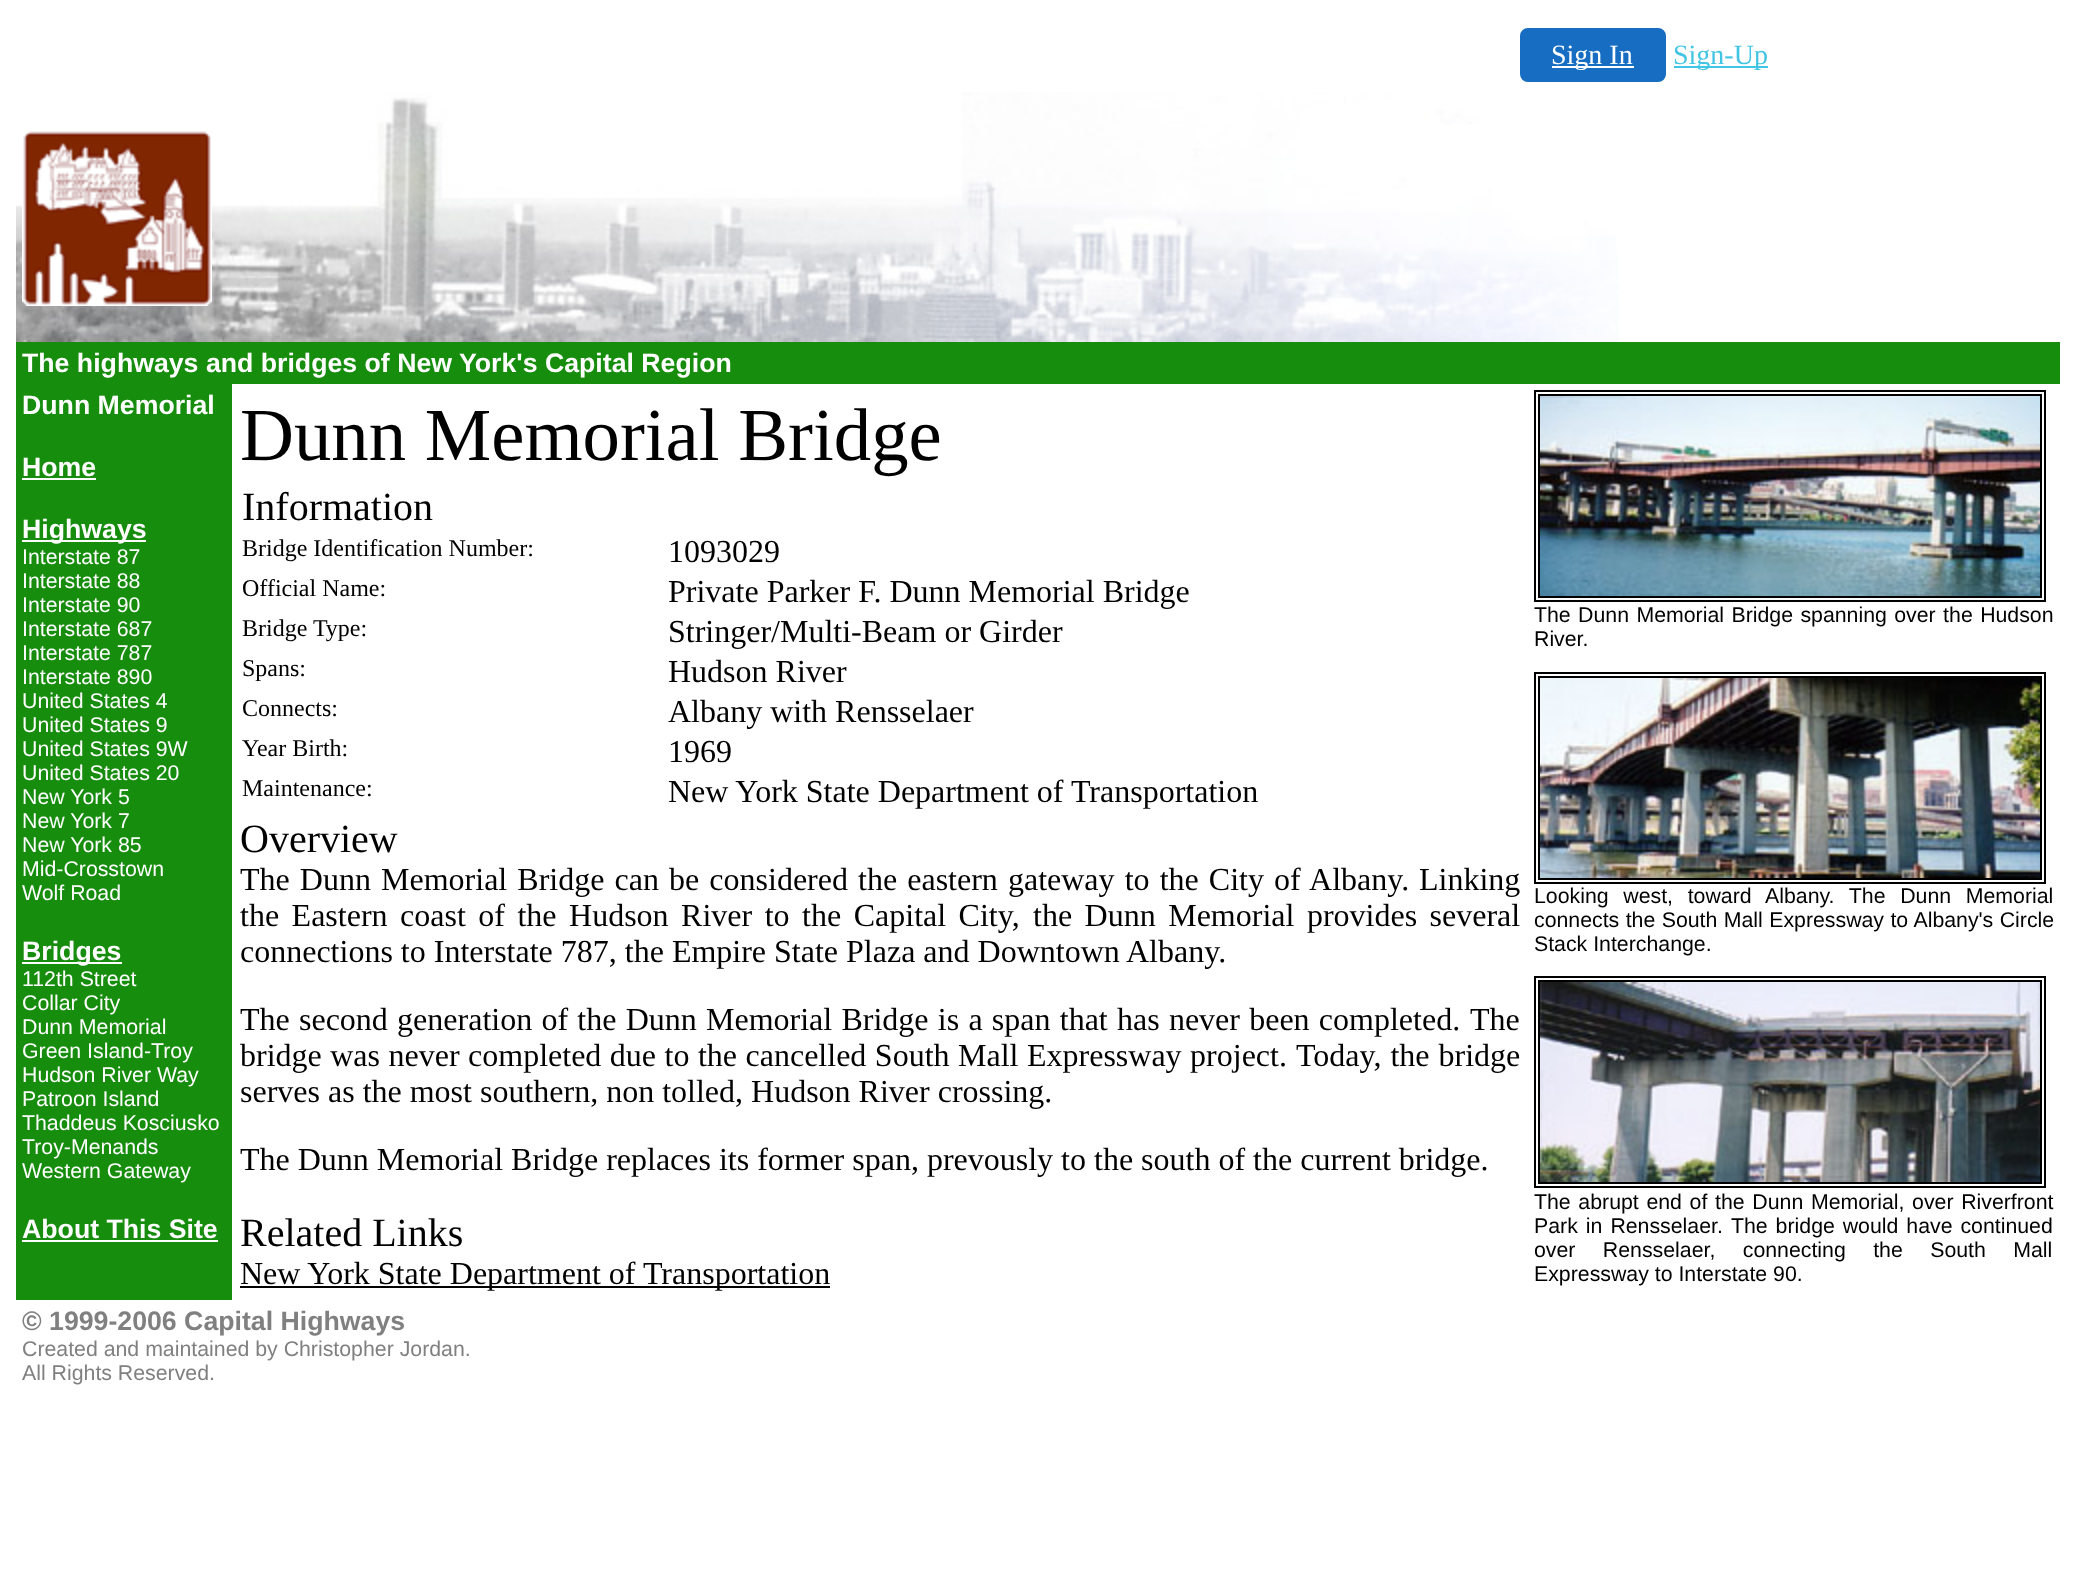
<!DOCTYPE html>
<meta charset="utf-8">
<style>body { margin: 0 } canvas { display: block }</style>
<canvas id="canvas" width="2075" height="1595"></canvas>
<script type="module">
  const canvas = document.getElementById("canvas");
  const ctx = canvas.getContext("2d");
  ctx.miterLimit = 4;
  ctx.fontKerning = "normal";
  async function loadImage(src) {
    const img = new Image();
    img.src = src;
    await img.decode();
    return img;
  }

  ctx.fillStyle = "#ffffff";
  ctx.fillRect(0, 0, 2075, 1595);
  ctx.fillStyle = "#166dc2";
  ctx.beginPath();
  ctx.roundRect(1521, 29, 144, 52, 7);
  ctx.fill();
  ctx.strokeStyle = "#166dc2";
  ctx.lineWidth = 2;
  ctx.stroke();
  ctx.fillStyle = "#ffffff";
  ctx.fillRect(1552, 66, 82, 2);
  ctx.font = "28px Liberation Serif";
  ctx.fillText("Sign In", 1551, 64);
  ctx.fillStyle = "#41c5e4";
  ctx.fillRect(1674, 66, 94, 2);
  ctx.fillText("Sign-Up", 1673, 64);
  ctx.drawImage(await loadImage("img1.png"), 16, 92, 1603, 250);
  ctx.drawImage(await loadImage("img2.png"), 22, 131, 190, 175);
  ctx.fillStyle = "#168d0c";
  ctx.fillRect(16, 342, 2044, 42);
  ctx.font = "bold 26.7px Liberation Sans";
  ctx.fillStyle = "#ffffff";
  ctx.fillText("The highways and bridges of New York's Capital Region", 22, 372);
  ctx.fillStyle = "#168d0c";
  ctx.fillRect(16, 384, 216, 916);
  ctx.fillStyle = "#ffffff";
  ctx.fillText("Dunn Memorial", 22, 414);
  ctx.fillText("Home", 22, 476);
  ctx.fillRect(22, 478, 74, 2);
  ctx.fillRect(22, 540, 124, 2);
  ctx.fillText("Highways", 22, 538);
  ctx.font = "21.3px Liberation Sans";
  ctx.fillText("Interstate 87", 22, 564);
  ctx.fillText("Interstate 88", 22, 588);
  ctx.fillText("Interstate 90", 22, 612);
  ctx.fillText("Interstate 687", 22, 636);
  ctx.fillText("Interstate 787", 22, 660);
  ctx.fillText("Interstate 890", 22, 684);
  ctx.fillText("United States 4", 22, 708);
  ctx.fillText("United States 9", 22, 732);
  ctx.fillText("United States 9W", 22, 756);
  ctx.fillText("United States 20", 22, 780);
  ctx.fillText("New York 5", 22, 804);
  ctx.fillText("New York 7", 22, 828);
  ctx.fillText("New York 85", 22, 852);
  ctx.fillText("Mid-Crosstown", 22, 876);
  ctx.fillText("Wolf Road", 22, 900);
  ctx.fillRect(22, 962, 100, 2);
  ctx.font = "bold 26.7px Liberation Sans";
  ctx.fillText("Bridges", 22, 960);
  ctx.font = "21.3px Liberation Sans";
  ctx.fillText("112th Street", 22, 986);
  ctx.fillText("Collar City", 22, 1010);
  ctx.fillText("Dunn Memorial", 22, 1034);
  ctx.fillText("Green Island-Troy", 22, 1058);
  ctx.fillText("Hudson River Way", 22, 1082);
  ctx.fillText("Patroon Island", 22, 1106);
  ctx.fillText("Thaddeus Kosciusko", 22, 1130);
  ctx.fillText("Troy-Menands", 22, 1154);
  ctx.fillText("Western Gateway", 22, 1178);
  ctx.font = "bold 26.7px Liberation Sans";
  ctx.fillText("About This Site", 22, 1238);
  ctx.fillRect(22, 1240, 196, 2);
  ctx.font = "74.75px Liberation Serif";
  ctx.fillStyle = "#000000";
  ctx.fillText("Dunn Memorial Bridge", 240, 460);
  ctx.font = "40px Liberation Serif";
  ctx.fillText("Information", 242, 520);
  ctx.font = "24px Liberation Serif";
  ctx.fillText("Bridge Identification Number:", 242, 556);
  ctx.font = "32px Liberation Serif";
  ctx.fillText("1093029", 668, 562);
  ctx.font = "24px Liberation Serif";
  ctx.fillText("Official Name:", 242, 596);
  ctx.font = "32px Liberation Serif";
  ctx.fillText("Private Parker F. Dunn Memorial Bridge", 668, 602);
  ctx.font = "24px Liberation Serif";
  ctx.fillText("Bridge Type:", 242, 636);
  ctx.font = "32px Liberation Serif";
  ctx.fillText("Stringer/Multi-Beam or Girder", 668, 642);
  ctx.font = "24px Liberation Serif";
  ctx.fillText("Spans:", 242, 676);
  ctx.font = "32px Liberation Serif";
  ctx.fillText("Hudson River", 668, 682);
  ctx.font = "24px Liberation Serif";
  ctx.fillText("Connects:", 242, 716);
  ctx.font = "32px Liberation Serif";
  ctx.fillText("Albany with Rensselaer", 668, 722);
  ctx.font = "24px Liberation Serif";
  ctx.fillText("Year Birth:", 242, 756);
  ctx.font = "32px Liberation Serif";
  ctx.fillText("1969", 668, 762);
  ctx.font = "24px Liberation Serif";
  ctx.fillText("Maintenance:", 242, 796);
  ctx.font = "32px Liberation Serif";
  ctx.fillText("New York State Department of Transportation", 668, 802);
  ctx.font = "40px Liberation Serif";
  ctx.fillText("Overview", 240, 852);
  ctx.wordSpacing = "2.1px";
  ctx.font = "32px Liberation Serif";
  ctx.fillText("The Dunn Memorial Bridge can be considered the eastern gateway to the City of Albany.", 240, 890);
  ctx.wordSpacing = "0px";
  ctx.fillText("Linking", 1419, 890);
  ctx.wordSpacing = "4.5px";
  ctx.fillText("the Eastern coast of the Hudson River to the Capital City,", 240, 926);
  ctx.fillText("the Dunn Memorial provides several", 1033, 926);
  ctx.wordSpacing = "0px";
  ctx.fillText("connections to Interstate 787, the Empire State Plaza and Downtown Albany.", 240, 962);
  ctx.wordSpacing = "1.25px";
  ctx.fillText("The second generation of the Dunn Memorial Bridge is a span that has never been completed.", 240, 1030);
  ctx.wordSpacing = "0px";
  ctx.fillText("The", 1470, 1030);
  ctx.wordSpacing = "0.5px";
  ctx.fillText("bridge was never completed due to the cancelled South Mall Expressway project.", 240, 1066);
  ctx.wordSpacing = "1px";
  ctx.fillText("Today, the bridge", 1296, 1066);
  ctx.wordSpacing = "0px";
  ctx.fillText("serves as the most southern, non tolled, Hudson River crossing.", 240, 1102);
  ctx.fillText("The Dunn Memorial Bridge replaces its former span, prevously to the south of the current bridge.", 240, 1170);
  ctx.font = "40px Liberation Serif";
  ctx.fillText("Related Links", 240, 1246);
  ctx.fillRect(240, 1286, 590, 2);
  ctx.font = "32px Liberation Serif";
  ctx.fillText("New York State Department of Transportation", 240, 1284);
  ctx.strokeStyle = "#000000";
  ctx.strokeRect(1535, 391, 510, 210);
  ctx.strokeRect(1539, 395, 502, 202);
  ctx.drawImage(await loadImage("img3.png"), 1540, 396, 500, 200);
  ctx.wordSpacing = "1.5px";
  ctx.font = "21.3px Liberation Sans";
  ctx.fillText("The Dunn Memorial Bridge spanning over the Hudson", 1534, 622);
  ctx.wordSpacing = "0px";
  ctx.fillText("River.", 1534, 646);
  ctx.strokeRect(1535, 673, 510, 210);
  ctx.strokeRect(1539, 677, 502, 202);
  ctx.drawImage(await loadImage("img4.png"), 1540, 678, 500, 200);
  ctx.wordSpacing = "8.75px";
  ctx.fillText("Looking west, toward Albany. The Dunn Memorial", 1534, 903);
  ctx.wordSpacing = "0.5px";
  ctx.fillText("connects the South Mall Expressway to Albany's Circle", 1534, 927);
  ctx.wordSpacing = "0px";
  ctx.fillText("Stack Interchange.", 1534, 951);
  ctx.strokeRect(1535, 977, 510, 210);
  ctx.strokeRect(1539, 981, 502, 202);
  ctx.drawImage(await loadImage("img5.png"), 1540, 982, 500, 200);
  ctx.wordSpacing = "1.75px";
  ctx.fillText("The abrupt end of the Dunn Memorial, over Riverfront", 1534, 1209);
  ctx.wordSpacing = "2.1px";
  ctx.fillText("Park in Rensselaer.", 1534, 1233);
  ctx.wordSpacing = "2px";
  ctx.fillText("The bridge would have continued", 1731, 1233);
  ctx.wordSpacing = "21.5px";
  ctx.fillText("over Rensselaer, connecting the South Mall", 1534, 1257);
  ctx.wordSpacing = "0px";
  ctx.fillText("Expressway to Interstate 90.", 1534, 1281);
  ctx.font = "bold 26.7px Liberation Sans";
  ctx.fillStyle = "#808080";
  ctx.fillText("© 1999-2006 Capital Highways", 22, 1330);
  ctx.font = "21.3px Liberation Sans";
  ctx.fillText("Created and maintained by Christopher Jordan.", 22, 1356);
  ctx.fillText("All Rights Reserved.", 22, 1380);
</script>
